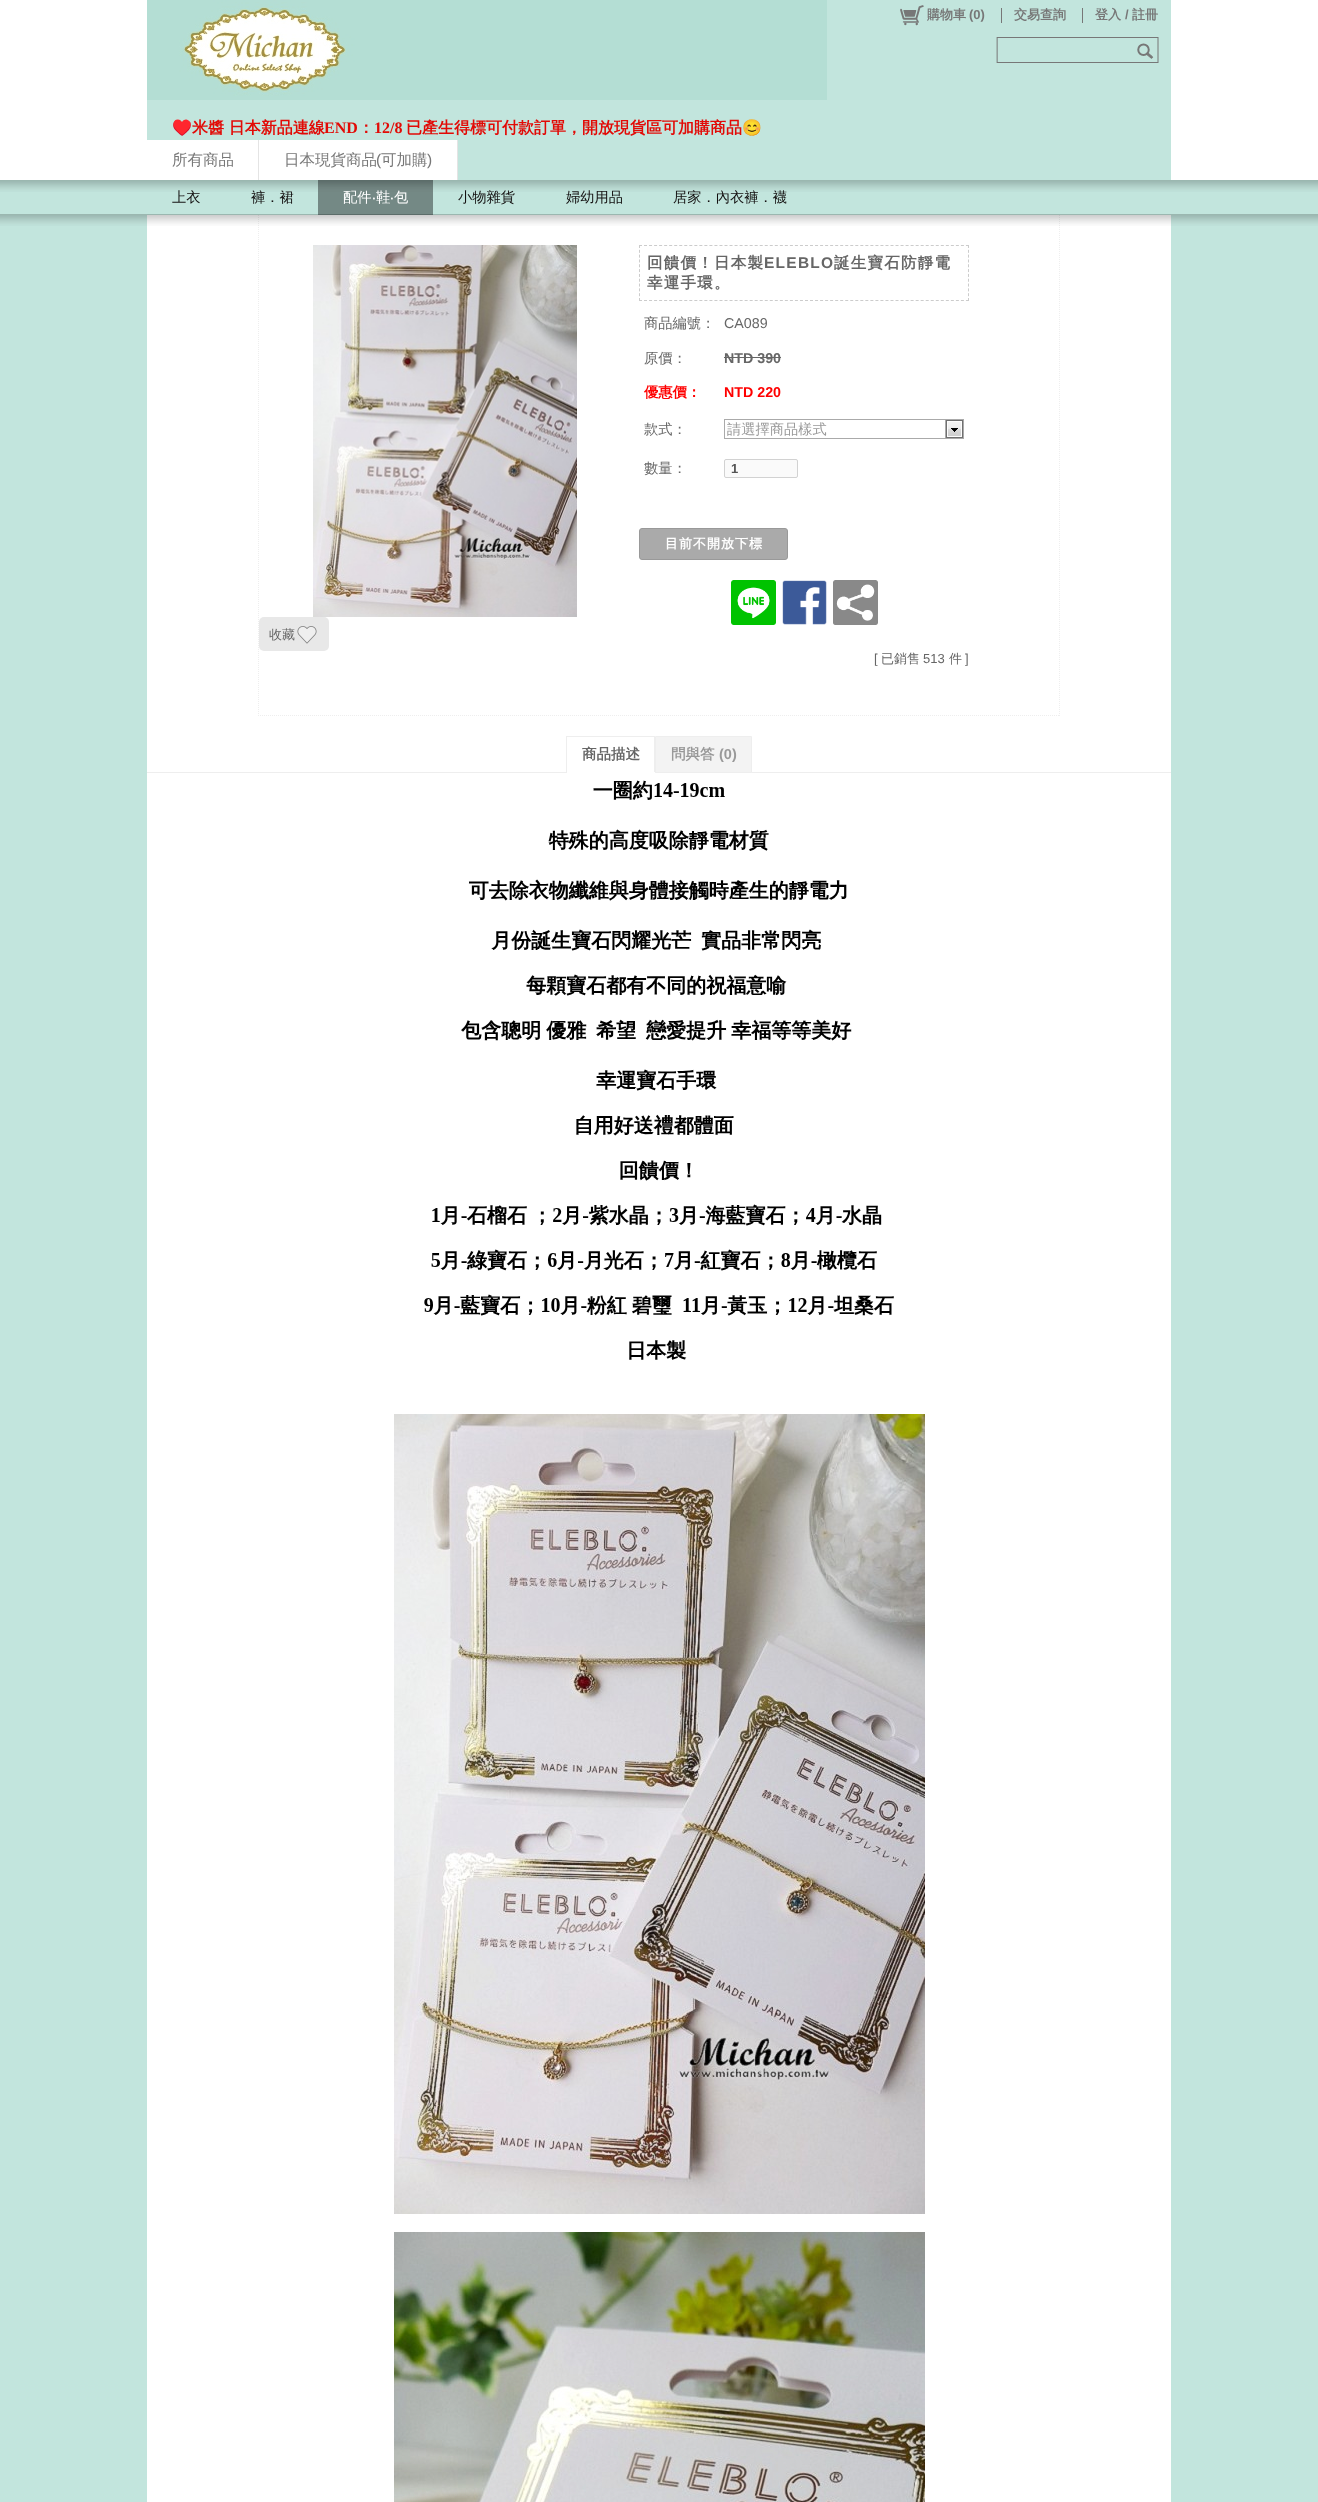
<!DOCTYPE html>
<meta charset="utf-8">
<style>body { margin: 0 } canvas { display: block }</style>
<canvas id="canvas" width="1318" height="2502"></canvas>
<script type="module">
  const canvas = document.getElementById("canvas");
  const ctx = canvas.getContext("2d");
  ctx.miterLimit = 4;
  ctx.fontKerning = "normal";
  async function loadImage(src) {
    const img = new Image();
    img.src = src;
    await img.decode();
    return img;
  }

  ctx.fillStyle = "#c2e5dd";
  ctx.fillRect(0, 0, 1318, 2502);
  ctx.fillStyle = "#ffffff";
  ctx.fillRect(0, 0, 1318, 180);
  ctx.fillStyle = "#c2e5dd";
  ctx.fillRect(147, 0, 1024, 180);
  ctx.drawImage(await loadImage("img1.png"), 147, 0, 680, 100);
  ctx.drawImage(await loadImage("img2.png"), 900, 5, 24, 21);
  ctx.font = "bold 13px WenQuanYi Zen Hei";
  ctx.fillStyle = "#777777";
  ctx.fillText("購物車", 927, 19);
  ctx.font = "bold 13px Liberation Sans";
  ctx.fillText("(0)", 969, 19);
  ctx.fillRect(1001, 8, 1, 15);
  ctx.font = "bold 13px WenQuanYi Zen Hei";
  ctx.fillText("交易查詢", 1014, 19);
  ctx.fillRect(1082, 8, 1, 15);
  ctx.fillText("登入", 1095, 19);
  ctx.font = "bold 13px Liberation Sans";
  ctx.fillText("/", 1125, 19);
  ctx.font = "bold 13px WenQuanYi Zen Hei";
  ctx.fillText("註冊", 1132, 19);
  ctx.drawImage(await loadImage("img3.png"), 996, 37, 138, 26);
  ctx.drawImage(await loadImage("img4.png"), 1134, 37, 25, 26);
  ctx.font = "bold 16px Noto Color Emoji";
  ctx.fillStyle = "#e20a06";
  ctx.fillText("♥️", 172, 133);
  ctx.font = "bold 16px WenQuanYi Zen Hei";
  ctx.fillText("米醬 日本新品連線", 192, 133);
  ctx.font = "bold 16px Liberation Serif";
  ctx.fillText("END", 324, 133);
  ctx.font = "bold 16px WenQuanYi Zen Hei";
  ctx.fillText("：", 358, 133);
  ctx.font = "bold 16px Liberation Serif";
  ctx.fillText("12/8", 374, 133);
  ctx.font = "bold 16px WenQuanYi Zen Hei";
  ctx.fillText("已產生得標可付款訂單，開放現貨區可加購商品", 406, 133);
  ctx.font = "bold 16px Noto Color Emoji";
  ctx.fillText("😊", 742, 133);
  ctx.fillStyle = "#ffffff";
  ctx.fillRect(147, 140, 111, 40);
  ctx.fillStyle = "#e4e4e4";
  ctx.fillRect(258, 140, 1, 40);
  ctx.font = "500 15.5px WenQuanYi Zen Hei";
  ctx.fillStyle = "#777777";
  ctx.fillText("所有商品", 172, 165);
  ctx.fillStyle = "#ffffff";
  ctx.fillRect(259, 140, 198, 40);
  ctx.fillStyle = "#e4e4e4";
  ctx.fillRect(457, 140, 1, 40);
  ctx.fillStyle = "#777777";
  ctx.fillText("日本現貨商品", 284, 165);
  ctx.font = "15.5px Liberation Sans";
  ctx.fillText("(", 376, 165);
  ctx.font = "500 15.5px WenQuanYi Zen Hei";
  ctx.fillText("可加購", 381, 165);
  ctx.font = "15.5px Liberation Sans";
  ctx.fillText(")", 427, 165);
  ctx.font = "500 14.25px WenQuanYi Zen Hei";
  ctx.fillStyle = "#131010";
  ctx.fillText("上衣", 172, 202);
  ctx.fillText("褲．裙", 251, 202);
  ctx.fillStyle = "#748985";
  ctx.fillRect(318, 180, 115, 35);
  ctx.fillStyle = "#ffffff";
  ctx.fillText("配件", 343, 202);
  ctx.fillText("鞋", 376, 202);
  ctx.fillText("包", 394, 202);
  ctx.fillStyle = "#131010";
  ctx.fillText("小物雜貨", 458, 202);
  ctx.fillText("婦幼用品", 566, 202);
  ctx.fillText("居家．內衣褲．襪", 673, 202);
  ctx.drawImage(await loadImage("img5.png"), 0, 180, 1318, 12);
  ctx.font = "14.25px Noto Sans";
  ctx.fillStyle = "#ffffff";
  ctx.fillText("‧", 372, 202);
  ctx.fillText("‧", 390, 202);
  ctx.fillRect(147, 215, 1024, 2287);
  ctx.beginPath();
  ctx.moveTo(1059.5, 215);
  ctx.lineTo(1059.5, 716);
  ctx.strokeStyle = "#eeeeee";
  ctx.setLineDash([1, 1]);
  ctx.stroke();
  ctx.beginPath();
  ctx.moveTo(258, 715.5);
  ctx.lineTo(1060, 715.5);
  ctx.stroke();
  ctx.beginPath();
  ctx.moveTo(258.5, 215);
  ctx.lineTo(258.5, 716);
  ctx.stroke();
  ctx.drawImage(await loadImage("img6.png"), 0, 214, 1318, 12);
  ctx.drawImage(await loadImage("img7.png"), 313, 245, 264, 372);
  ctx.fillStyle = "#e8e8e8";
  ctx.beginPath();
  ctx.roundRect(259, 617, 70, 34, 5);
  ctx.fill();
  ctx.font = "500 13px WenQuanYi Zen Hei";
  ctx.fillStyle = "#666666";
  ctx.fillText("收藏", 269, 639);
  ctx.drawImage(await loadImage("img8.png"), 297, 626, 20, 18);
  ctx.beginPath();
  ctx.moveTo(639, 245.5);
  ctx.lineTo(969, 245.5);
  ctx.strokeStyle = "#cccccc";
  ctx.setLineDash([3, 2.03]);
  ctx.stroke();
  ctx.beginPath();
  ctx.moveTo(968.5, 245);
  ctx.lineTo(968.5, 301);
  ctx.setLineDash([3, 1.82]);
  ctx.stroke();
  ctx.beginPath();
  ctx.moveTo(639, 300.5);
  ctx.lineTo(969, 300.5);
  ctx.setLineDash([3, 2.03]);
  ctx.stroke();
  ctx.beginPath();
  ctx.moveTo(639.5, 245);
  ctx.lineTo(639.5, 301);
  ctx.setLineDash([3, 1.82]);
  ctx.stroke();
  ctx.letterSpacing = "1.25px";
  ctx.font = "bold 15.5px WenQuanYi Zen Hei";
  ctx.fillText("回饋價！日本製", 647, 268);
  ctx.font = "bold 15.5px Liberation Sans";
  ctx.fillText("ELEBLO", 764, 268);
  ctx.font = "bold 15.5px WenQuanYi Zen Hei";
  ctx.fillText("誕生寶石防靜電", 834, 268);
  ctx.fillText("幸運手環。", 647, 288);
  ctx.letterSpacing = "0px";
  ctx.font = "500 14.25px WenQuanYi Zen Hei";
  ctx.fillText("商品編號：", 644, 328);
  ctx.font = "14.25px Liberation Sans";
  ctx.fillText("CA089", 724, 328);
  ctx.font = "500 14.25px WenQuanYi Zen Hei";
  ctx.fillText("原價：", 644, 363);
  ctx.font = "bold 14.25px Liberation Sans";
  ctx.fillText("NTD 390", 724, 363);
  ctx.fillRect(724, 357, 57, 1);
  ctx.font = "bold 14.25px WenQuanYi Zen Hei";
  ctx.fillStyle = "#ff0000";
  ctx.fillText("優惠價：", 644, 397);
  ctx.font = "bold 14.25px Liberation Sans";
  ctx.fillText("NTD 220", 724, 397);
  ctx.font = "500 14.25px WenQuanYi Zen Hei";
  ctx.fillStyle = "#666666";
  ctx.fillText("款式：", 644, 434);
  ctx.strokeStyle = "#aaaaaa";
  ctx.setLineDash([]);
  ctx.strokeRect(724.5, 419.5, 239, 19);
  ctx.fillStyle = "#999999";
  ctx.fillText("請選擇商品樣式", 727, 434);
  ctx.fillStyle = "#aaaaaa";
  ctx.fillRect(945, 420, 1, 18);
  ctx.drawImage(await loadImage("img9.png"), 946, 420, 17, 18);
  ctx.fillStyle = "#666666";
  ctx.fillText("數量：", 644, 473);
  ctx.fillStyle = "#fafafa";
  ctx.beginPath();
  ctx.roundRect(724.5, 459.5, 73, 18, 1.5);
  ctx.fill();
  ctx.strokeStyle = "#d2d2d2";
  ctx.stroke();
  ctx.font = "bold 13px Liberation Sans";
  ctx.fillStyle = "#545454";
  ctx.fillText("1", 731, 473);
  ctx.fillStyle = "#aaaaaa";
  ctx.beginPath();
  ctx.roundRect(639.5, 528.5, 148, 31, 2.5);
  ctx.fill();
  ctx.strokeStyle = "#999999";
  ctx.stroke();
  ctx.letterSpacing = "1px";
  ctx.font = "bold 13px WenQuanYi Zen Hei";
  ctx.fillStyle = "#ffffff";
  ctx.fillText("目前不開放下標", 665, 548);
  ctx.drawImage(await loadImage("img10.png"), 731, 580, 45, 45);
  ctx.drawImage(await loadImage("img11.png"), 782, 580, 45, 45);
  ctx.drawImage(await loadImage("img12.png"), 833, 580, 45, 45);
  ctx.letterSpacing = "0px";
  ctx.font = "13px Liberation Sans";
  ctx.fillStyle = "#666666";
  ctx.fillText("[", 874, 663);
  ctx.font = "500 13px WenQuanYi Zen Hei";
  ctx.fillText("已銷售", 881, 663);
  ctx.font = "13px Liberation Sans";
  ctx.fillText("513", 923, 663);
  ctx.font = "500 13px WenQuanYi Zen Hei";
  ctx.fillText("件", 949, 663);
  ctx.font = "13px Liberation Sans";
  ctx.fillText("]", 965, 663);
  ctx.fillStyle = "#eeeeee";
  ctx.fillRect(566, 736, 89, 1);
  ctx.fillRect(147, 772, 1024, 1);
  ctx.fillRect(654, 736, 1, 37);
  ctx.fillStyle = "#ffffff";
  ctx.fillRect(566, 772, 89, 1);
  ctx.fillStyle = "#eeeeee";
  ctx.fillRect(566, 736, 1, 37);
  ctx.font = "bold 14.5px WenQuanYi Zen Hei";
  ctx.fillStyle = "#666666";
  ctx.fillText("商品描述", 582, 759);
  ctx.fillStyle = "#f3f3f3";
  ctx.beginPath();
  ctx.rect(655.5, 736.5, 96, 36);
  ctx.fill();
  ctx.strokeStyle = "#eeeeee";
  ctx.stroke();
  ctx.fillStyle = "#999999";
  ctx.fillText("問與答", 671, 759);
  ctx.font = "bold 14.5px Liberation Sans";
  ctx.fillText("(0)", 719, 759);
  ctx.drawImage(await loadImage("img13.png"), 394, 780, 531, 1722);
</script>
